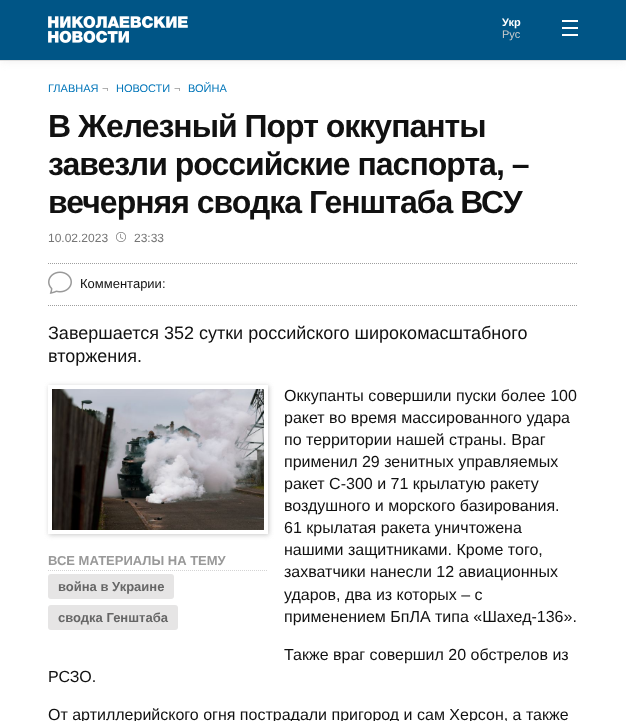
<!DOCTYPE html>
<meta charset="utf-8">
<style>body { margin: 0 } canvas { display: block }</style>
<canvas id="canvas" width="626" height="721"></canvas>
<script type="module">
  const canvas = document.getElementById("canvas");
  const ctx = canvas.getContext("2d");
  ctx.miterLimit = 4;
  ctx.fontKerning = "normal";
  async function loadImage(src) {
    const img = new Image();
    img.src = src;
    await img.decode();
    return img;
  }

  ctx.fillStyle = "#ffffff";
  ctx.fillRect(0, 0, 626, 721);
  ctx.fillStyle = "#eeeeee";
  ctx.filter = "blur(4px)";
  ctx.beginPath();
  ctx.rect(0, 0, 626, 61);
  ctx.fill();
  ctx.filter = "none";
  ctx.fillStyle = "#005586";
  ctx.fillRect(0, 0, 626, 60);
  ctx.fillStyle = "#e0e0e0";
  ctx.fillRect(0, 60, 626, 1);
  ctx.drawImage(await loadImage("img1.png"), 48, 16, 140, 27);
  ctx.font = "bold 11px Liberation Sans";
  ctx.fillStyle = "#ffffff";
  ctx.fillText("Укр", 502, 26);
  ctx.font = "11px Liberation Sans";
  ctx.fillStyle = "#cccccc";
  ctx.fillText("Рус", 502, 38);
  ctx.fillStyle = "#ffffff";
  ctx.fillRect(562, 20, 16, 2);
  ctx.fillRect(562, 27, 16, 2);
  ctx.fillRect(562, 34, 16, 2);
  ctx.fillStyle = "#0075b9";
  ctx.fillText("ГЛАВНАЯ", 48, 92);
  ctx.fillStyle = "#999999";
  ctx.fillText("¬", 102, 92);
  ctx.fillStyle = "#0075b9";
  ctx.fillText("НОВОСТИ", 116, 92);
  ctx.fillStyle = "#999999";
  ctx.fillText("¬", 174, 92);
  ctx.fillStyle = "#0075b9";
  ctx.fillText("ВОЙНА", 188, 92);
  ctx.letterSpacing = "-1px";
  ctx.font = "bold 32px Liberation Sans";
  ctx.fillStyle = "#111111";
  ctx.fillText("В Железный Порт оккупанты", 48, 137);
  ctx.fillText("завезли российские паспорта, –", 48, 175);
  ctx.fillText("вечерняя сводка Генштаба ВСУ", 48, 213);
  ctx.letterSpacing = "0px";
  ctx.font = "12px Liberation Sans";
  ctx.fillStyle = "#757575";
  ctx.fillText("10.02.2023", 48, 242);
  ctx.drawImage(await loadImage("img2.png"), 116, 232, 10, 10);
  ctx.fillText("23:33", 134, 242);
  ctx.beginPath();
  ctx.moveTo(48, 263.5);
  ctx.lineTo(578, 263.5);
  ctx.strokeStyle = "#9e9e9e";
  ctx.setLineDash([1, 1]);
  ctx.stroke();
  ctx.beginPath();
  ctx.moveTo(48, 305.5);
  ctx.lineTo(578, 305.5);
  ctx.stroke();
  ctx.drawImage(await loadImage("img3.png"), 48, 271, 24, 23);
  ctx.font = "13px Liberation Sans";
  ctx.fillStyle = "#111111";
  ctx.fillText("Комментарии:", 80, 288);
  ctx.font = "18px Liberation Sans";
  ctx.fillText("Завершается 352 сутки российского широкомасштабного", 48, 339);
  ctx.fillText("вторжения.", 48, 362);
  ctx.save();
  ctx.beginPath();
  ctx.moveTo(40, 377);
  ctx.lineTo(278, 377);
  ctx.lineTo(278, 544);
  ctx.lineTo(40, 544);
  ctx.closePath();
  ctx.moveTo(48, 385);
  ctx.lineTo(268, 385);
  ctx.lineTo(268, 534);
  ctx.lineTo(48, 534);
  ctx.closePath();
  ctx.clip("evenodd");
  ctx.fillStyle = "#c8c8c8";
  ctx.filter = "blur(2.5px)";
  ctx.beginPath();
  ctx.rect(49, 386, 220, 149);
  ctx.fill();
  ctx.filter = "none";
  ctx.restore();
  ctx.drawImage(await loadImage("img4.png"), 52, 389, 212, 141);
  ctx.beginPath();
  ctx.moveTo(48, 570.5);
  ctx.lineTo(268, 570.5);
  ctx.strokeStyle = "#d4d4d4";
  ctx.stroke();
  ctx.font = "bold 13px Liberation Sans";
  ctx.fillStyle = "#999999";
  ctx.fillText("ВСЕ МАТЕРИАЛЫ НА ТЕМУ", 48, 565);
  ctx.fillStyle = "#e6e5e5";
  ctx.beginPath();
  ctx.roundRect(48, 574, 126, 25, 3);
  ctx.fill();
  ctx.fillStyle = "#666666";
  ctx.fillText("война в Украине", 58, 591);
  ctx.fillStyle = "#e6e5e5";
  ctx.beginPath();
  ctx.roundRect(48, 605, 130, 25, 3);
  ctx.fill();
  ctx.fillStyle = "#666666";
  ctx.fillText("сводка Генштаба", 58, 622);
  ctx.font = "16px Liberation Sans";
  ctx.fillStyle = "#111111";
  ctx.fillText("Оккупанты совершили пуски более 100", 284, 401);
  ctx.fillText("ракет во время массированного удара", 284, 423);
  ctx.fillText("по территории нашей страны. Враг", 284, 445);
  ctx.fillText("применил 29 зенитных управляемых", 284, 467);
  ctx.fillText("ракет С-300 и 71 крылатую ракету", 284, 489);
  ctx.fillText("воздушного и морского базирования.", 284, 511);
  ctx.fillText("61 крылатая ракета уничтожена", 284, 533);
  ctx.fillText("нашими защитниками. Кроме того,", 284, 555);
  ctx.fillText("захватчики нанесли 12 авиационных", 284, 577);
  ctx.fillText("ударов, два из которых – с", 284, 600);
  ctx.fillText("применением БпЛА типа «Шахед-136».", 284, 622);
  ctx.fillText("Также враг совершил 20 обстрелов из", 284, 660);
  ctx.fillText("РСЗО.", 48, 682);
  ctx.fillText("От артиллерийского огня пострадали пригород и сам Херсон, а также", 48, 720);
</script>
